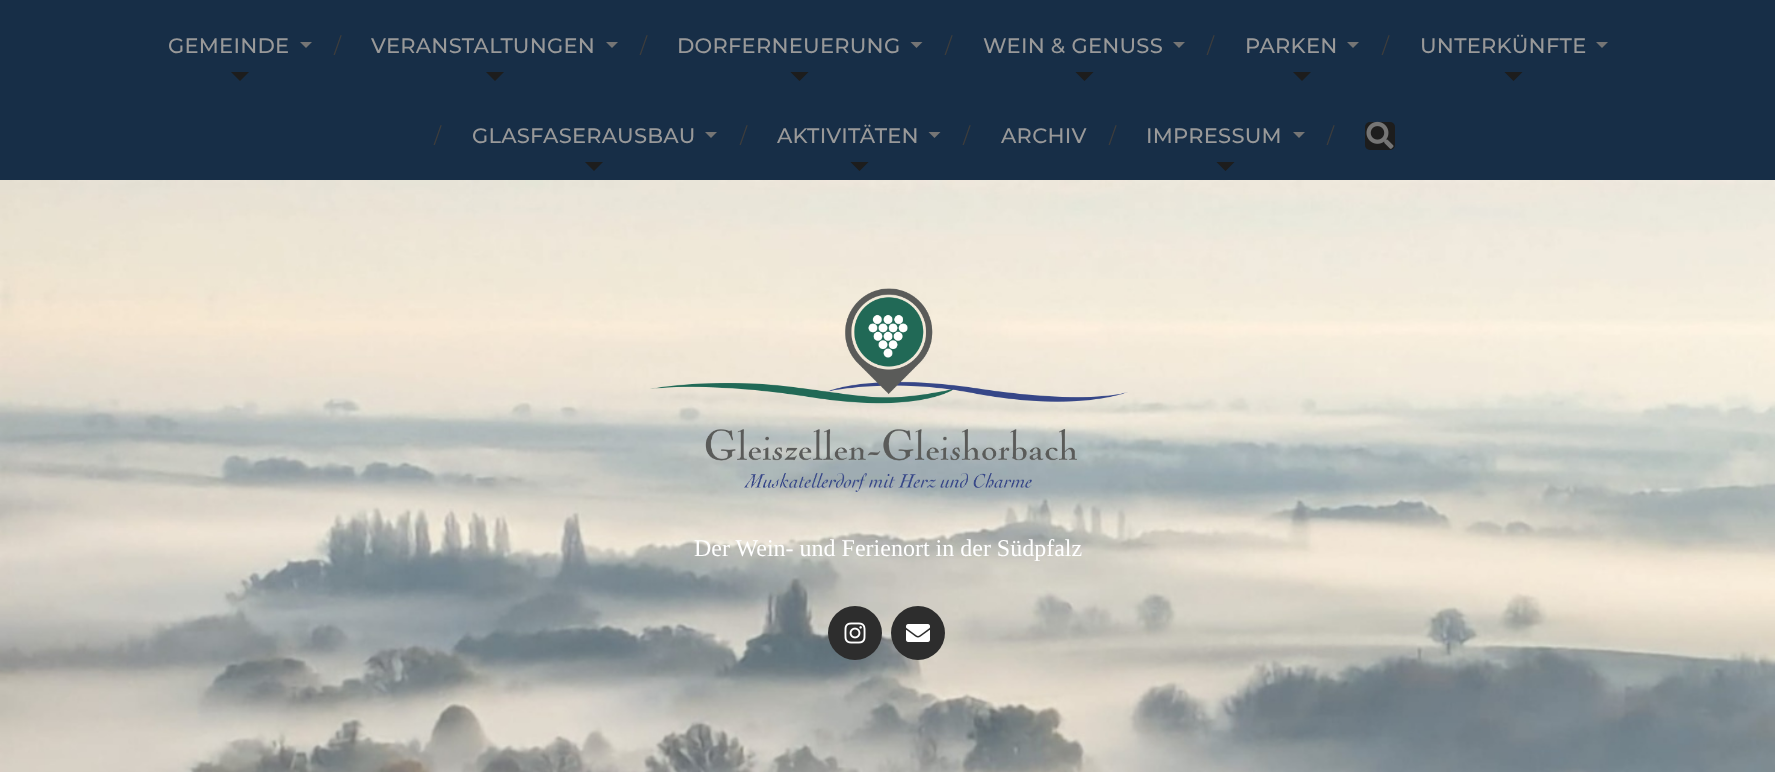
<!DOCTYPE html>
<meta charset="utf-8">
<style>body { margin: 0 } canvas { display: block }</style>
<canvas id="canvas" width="1775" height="772"></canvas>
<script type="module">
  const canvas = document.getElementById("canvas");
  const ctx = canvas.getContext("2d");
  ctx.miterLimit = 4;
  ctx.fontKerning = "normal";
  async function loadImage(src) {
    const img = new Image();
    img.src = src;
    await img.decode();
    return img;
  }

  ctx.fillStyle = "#172e47";
  ctx.fillRect(0, 0, 1775, 772);
  ctx.letterSpacing = "0.25px";
  ctx.font = "100 21px Montserrat";
  ctx.fillStyle = "#999999";
  ctx.fillText("GEMEINDE", 168, 53);
  ctx.fillStyle = "#757575";
  ctx.beginPath();
  ctx.moveTo(300, 42);
  ctx.lineTo(312, 42);
  ctx.lineTo(306, 48);
  ctx.closePath();
  ctx.fill();
  ctx.fillStyle = "#1d1d1d";
  ctx.beginPath();
  ctx.moveTo(231, 72);
  ctx.lineTo(249, 72);
  ctx.lineTo(240, 81);
  ctx.closePath();
  ctx.fill();
  ctx.letterSpacing = "0px";
  ctx.font = "100 21px 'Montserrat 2'";
  ctx.fillStyle = "#3d3d3d";
  ctx.fillText("/", 334, 53);
  ctx.letterSpacing = "0.25px";
  ctx.font = "100 21px Montserrat";
  ctx.fillStyle = "#999999";
  ctx.fillText("VERANSTALTUNGEN", 371, 53);
  ctx.fillStyle = "#757575";
  ctx.beginPath();
  ctx.moveTo(606, 42);
  ctx.lineTo(618, 42);
  ctx.lineTo(612, 48);
  ctx.closePath();
  ctx.fill();
  ctx.fillStyle = "#1d1d1d";
  ctx.beginPath();
  ctx.moveTo(486, 72);
  ctx.lineTo(504, 72);
  ctx.lineTo(495, 81);
  ctx.closePath();
  ctx.fill();
  ctx.letterSpacing = "0px";
  ctx.font = "100 21px 'Montserrat 2'";
  ctx.fillStyle = "#3d3d3d";
  ctx.fillText("/", 640, 53);
  ctx.letterSpacing = "0.25px";
  ctx.font = "100 21px Montserrat";
  ctx.fillStyle = "#999999";
  ctx.fillText("DORFERNEUERUNG", 677, 53);
  ctx.fillStyle = "#757575";
  ctx.beginPath();
  ctx.moveTo(910.5, 42);
  ctx.lineTo(922.5, 42);
  ctx.lineTo(916.5, 48);
  ctx.closePath();
  ctx.fill();
  ctx.fillStyle = "#1d1d1d";
  ctx.beginPath();
  ctx.moveTo(790.5, 72);
  ctx.lineTo(808.5, 72);
  ctx.lineTo(799.5, 81);
  ctx.closePath();
  ctx.fill();
  ctx.letterSpacing = "0px";
  ctx.font = "100 21px 'Montserrat 2'";
  ctx.fillStyle = "#3d3d3d";
  ctx.fillText("/", 945, 53);
  ctx.letterSpacing = "0.25px";
  ctx.font = "100 21px Montserrat";
  ctx.fillStyle = "#999999";
  ctx.fillText("WEIN & GENUSS", 983, 53);
  ctx.fillStyle = "#757575";
  ctx.beginPath();
  ctx.moveTo(1173, 42);
  ctx.lineTo(1185, 42);
  ctx.lineTo(1179, 48);
  ctx.closePath();
  ctx.fill();
  ctx.fillStyle = "#1d1d1d";
  ctx.beginPath();
  ctx.moveTo(1075.5, 72);
  ctx.lineTo(1093.5, 72);
  ctx.lineTo(1084.5, 81);
  ctx.closePath();
  ctx.fill();
  ctx.letterSpacing = "0px";
  ctx.font = "100 21px 'Montserrat 2'";
  ctx.fillStyle = "#3d3d3d";
  ctx.fillText("/", 1207, 53);
  ctx.letterSpacing = "0.25px";
  ctx.font = "100 21px Montserrat";
  ctx.fillStyle = "#999999";
  ctx.fillText("PARKEN", 1245, 53);
  ctx.fillStyle = "#757575";
  ctx.beginPath();
  ctx.moveTo(1347, 42);
  ctx.lineTo(1359, 42);
  ctx.lineTo(1353, 48);
  ctx.closePath();
  ctx.fill();
  ctx.fillStyle = "#1d1d1d";
  ctx.beginPath();
  ctx.moveTo(1293, 72);
  ctx.lineTo(1311, 72);
  ctx.lineTo(1302, 81);
  ctx.closePath();
  ctx.fill();
  ctx.letterSpacing = "0px";
  ctx.font = "100 21px 'Montserrat 2'";
  ctx.fillStyle = "#3d3d3d";
  ctx.fillText("/", 1382, 53);
  ctx.letterSpacing = "0.25px";
  ctx.font = "100 21px Montserrat";
  ctx.fillStyle = "#999999";
  ctx.fillText("UNTERKÜNFTE", 1420, 53);
  ctx.fillStyle = "#757575";
  ctx.beginPath();
  ctx.moveTo(1596, 42);
  ctx.lineTo(1608, 42);
  ctx.lineTo(1602, 48);
  ctx.closePath();
  ctx.fill();
  ctx.fillStyle = "#1d1d1d";
  ctx.beginPath();
  ctx.moveTo(1504.5, 72);
  ctx.lineTo(1522.5, 72);
  ctx.lineTo(1513.5, 81);
  ctx.closePath();
  ctx.fill();
  ctx.letterSpacing = "0px";
  ctx.font = "100 21px 'Montserrat 2'";
  ctx.fillStyle = "#3d3d3d";
  ctx.fillText("/", 434, 143);
  ctx.letterSpacing = "0.25px";
  ctx.font = "100 21px Montserrat";
  ctx.fillStyle = "#999999";
  ctx.fillText("GLASFASERAUSBAU", 472, 143);
  ctx.fillStyle = "#757575";
  ctx.beginPath();
  ctx.moveTo(705, 132);
  ctx.lineTo(717, 132);
  ctx.lineTo(711, 138);
  ctx.closePath();
  ctx.fill();
  ctx.fillStyle = "#1d1d1d";
  ctx.beginPath();
  ctx.moveTo(585, 162);
  ctx.lineTo(603, 162);
  ctx.lineTo(594, 171);
  ctx.closePath();
  ctx.fill();
  ctx.letterSpacing = "0px";
  ctx.font = "100 21px 'Montserrat 2'";
  ctx.fillStyle = "#3d3d3d";
  ctx.fillText("/", 740, 143);
  ctx.letterSpacing = "0.25px";
  ctx.font = "100 21px Montserrat";
  ctx.fillStyle = "#999999";
  ctx.fillText("AKTIVITÄTEN", 777, 143);
  ctx.fillStyle = "#757575";
  ctx.beginPath();
  ctx.moveTo(928.5, 132);
  ctx.lineTo(940.5, 132);
  ctx.lineTo(934.5, 138);
  ctx.closePath();
  ctx.fill();
  ctx.fillStyle = "#1d1d1d";
  ctx.beginPath();
  ctx.moveTo(850.5, 162);
  ctx.lineTo(868.5, 162);
  ctx.lineTo(859.5, 171);
  ctx.closePath();
  ctx.fill();
  ctx.letterSpacing = "0px";
  ctx.font = "100 21px 'Montserrat 2'";
  ctx.fillStyle = "#3d3d3d";
  ctx.fillText("/", 963, 143);
  ctx.letterSpacing = "0.25px";
  ctx.font = "100 21px Montserrat";
  ctx.fillStyle = "#999999";
  ctx.fillText("ARCHIV", 1001, 143);
  ctx.letterSpacing = "0px";
  ctx.font = "100 21px 'Montserrat 2'";
  ctx.fillStyle = "#3d3d3d";
  ctx.fillText("/", 1109, 143);
  ctx.letterSpacing = "0.25px";
  ctx.font = "100 21px Montserrat";
  ctx.fillStyle = "#999999";
  ctx.fillText("IMPRESSUM", 1146, 143);
  ctx.fillStyle = "#757575";
  ctx.beginPath();
  ctx.moveTo(1293, 132);
  ctx.lineTo(1305, 132);
  ctx.lineTo(1299, 138);
  ctx.closePath();
  ctx.fill();
  ctx.fillStyle = "#1d1d1d";
  ctx.beginPath();
  ctx.moveTo(1216.5, 162);
  ctx.lineTo(1234.5, 162);
  ctx.lineTo(1225.5, 171);
  ctx.closePath();
  ctx.fill();
  ctx.letterSpacing = "0px";
  ctx.font = "100 21px 'Montserrat 2'";
  ctx.fillStyle = "#3d3d3d";
  ctx.fillText("/", 1327, 143);
  ctx.fillStyle = "#1d1d1d";
  ctx.beginPath();
  ctx.roundRect(1365, 122, 30, 28, 5);
  ctx.fill();
  ctx.drawImage(await loadImage("img1.png"), 1366, 121, 28, 28);
  ctx.drawImage(await loadImage("img2.png"), 0, 180, 1775, 592);
  ctx.drawImage(await loadImage("img3.png"), 650, 288, 478, 204);
  ctx.font = "24px Liberation Serif";
  ctx.fillStyle = "#ffffff";
  ctx.fillText("Der Wein- und Ferienort in der Südpfalz", 694, 556);
  ctx.fillStyle = "#2d2d2d";
  ctx.beginPath();
  ctx.arc(855, 633, 27, 0, Math.PI * 2);
  ctx.fill();
  ctx.drawImage(await loadImage("img4.png"), 844, 622, 22, 22);
  ctx.beginPath();
  ctx.arc(918, 633, 27, 0, Math.PI * 2);
  ctx.fill();
  ctx.drawImage(await loadImage("img5.png"), 906, 624, 24, 18);
</script>
